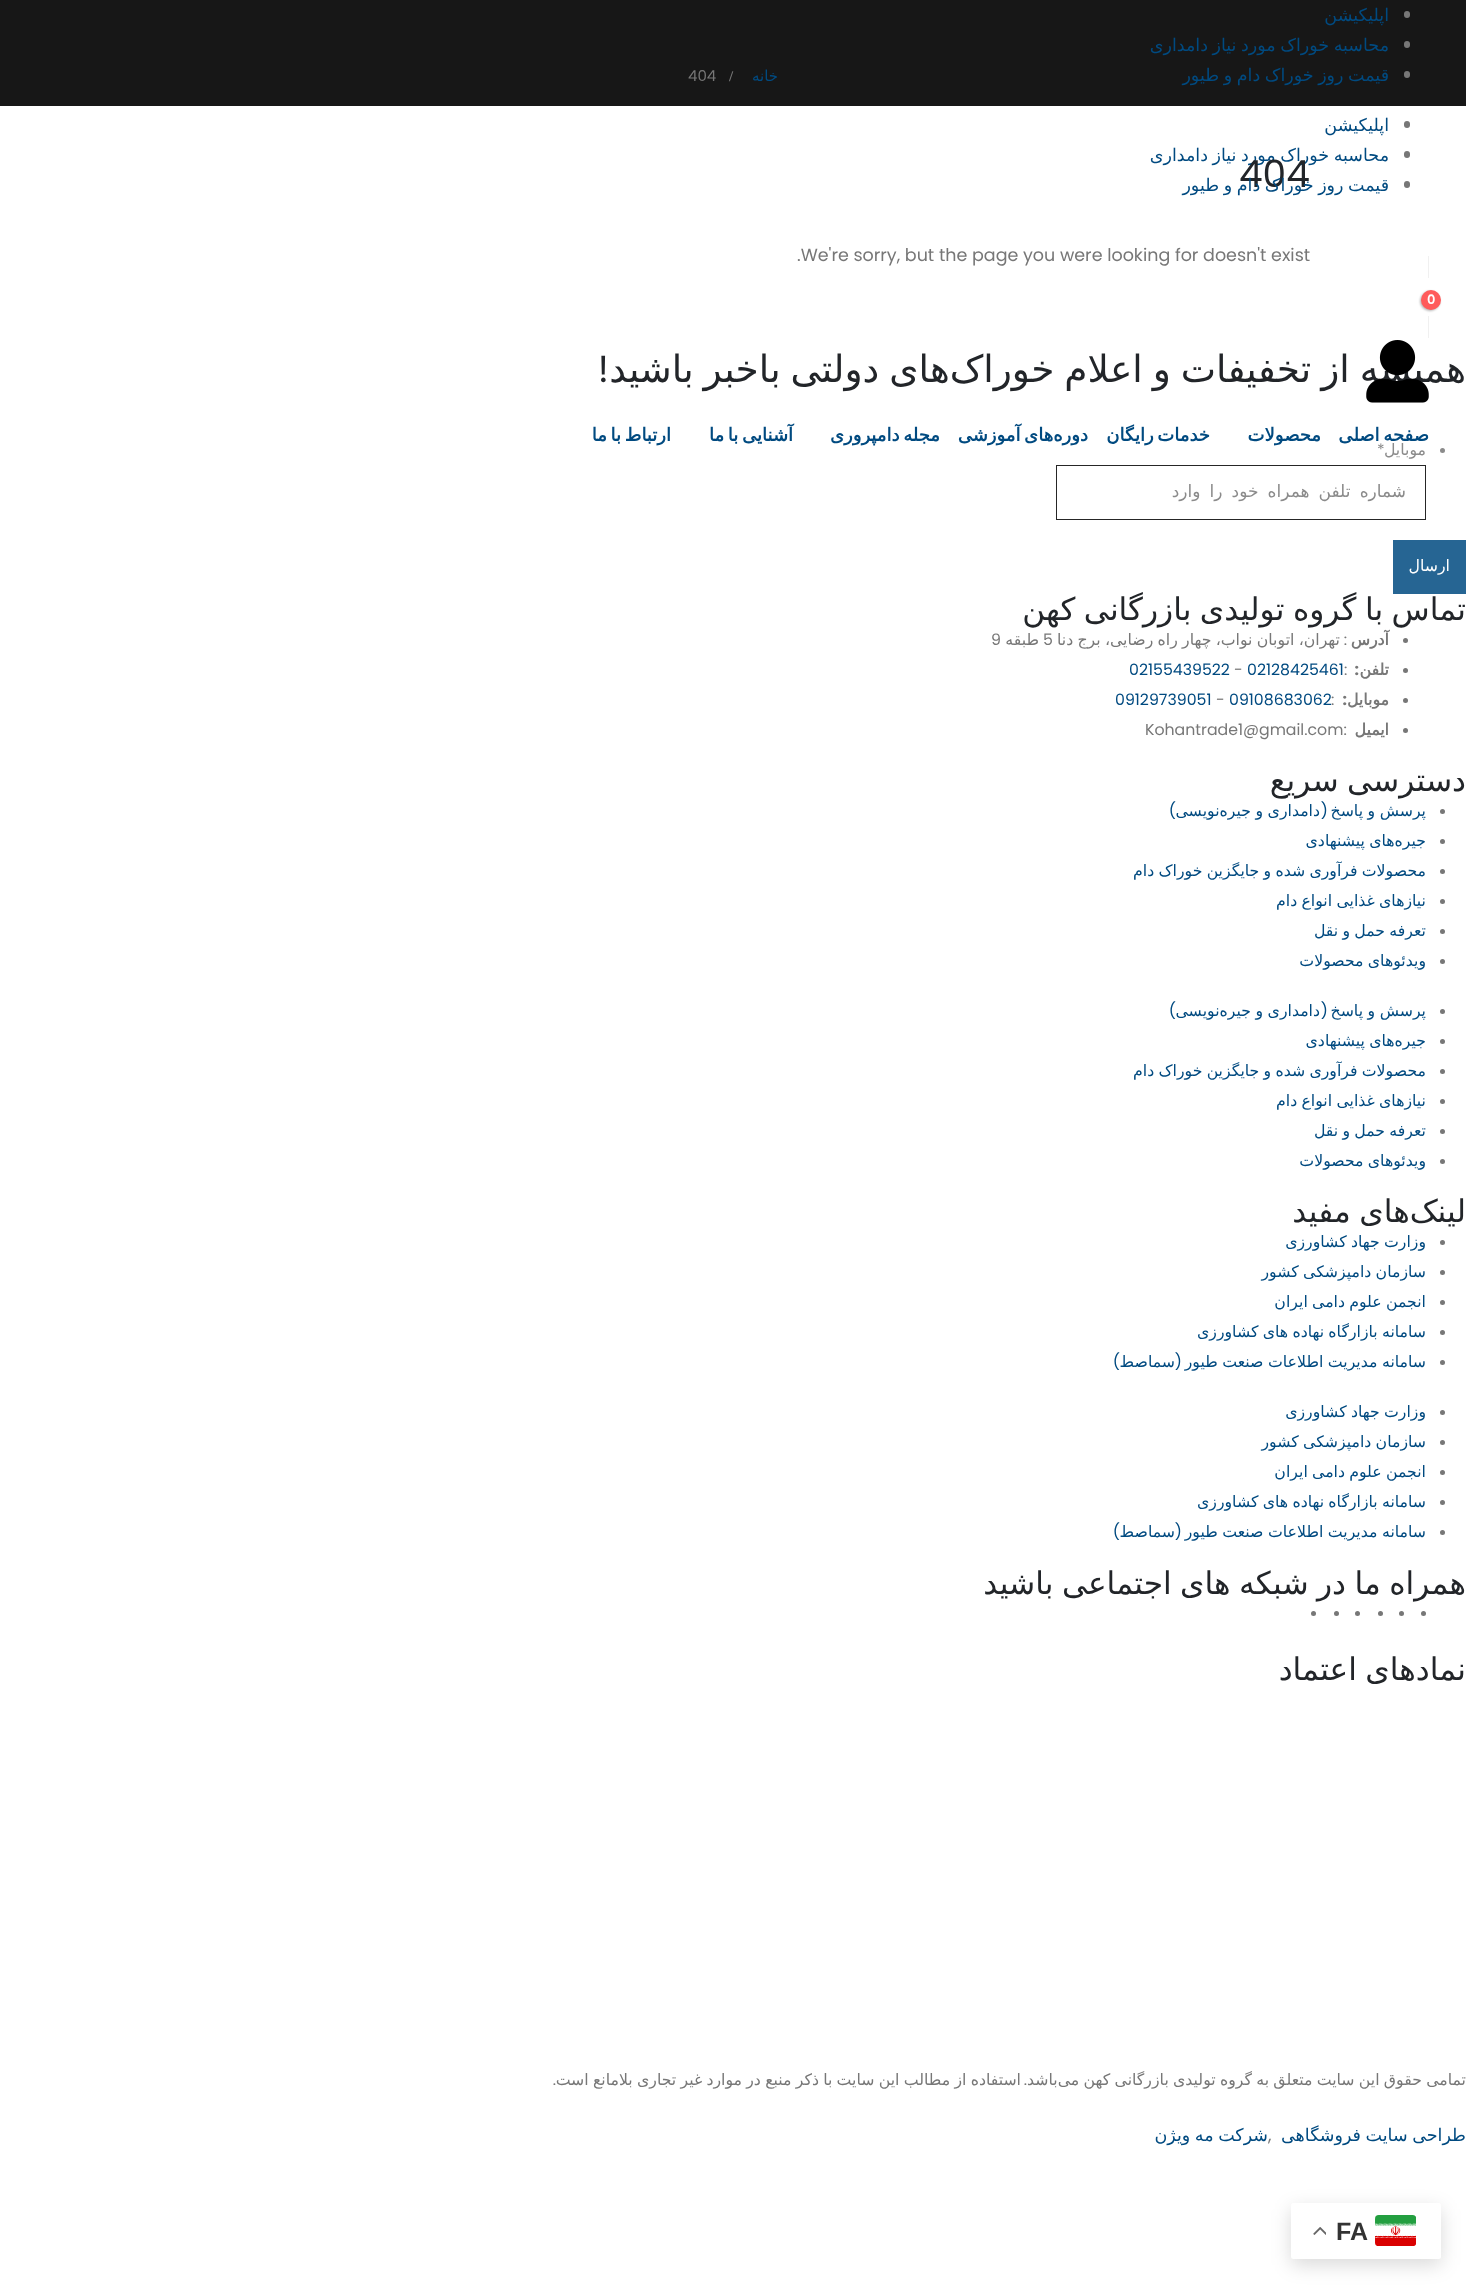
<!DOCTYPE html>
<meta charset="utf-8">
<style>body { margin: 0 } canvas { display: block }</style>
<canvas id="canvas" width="1466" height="2292"></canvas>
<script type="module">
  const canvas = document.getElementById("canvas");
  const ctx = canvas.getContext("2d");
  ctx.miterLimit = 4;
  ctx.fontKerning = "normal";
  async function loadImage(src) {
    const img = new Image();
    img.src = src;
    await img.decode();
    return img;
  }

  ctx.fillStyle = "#ffffff";
  ctx.fillRect(0, 0, 1466, 2292);
  ctx.fillStyle = "#171717";
  ctx.fillRect(0, 0, 1466, 106);
  ctx.fillStyle = "#777777";
  ctx.beginPath();
  ctx.roundRect(1404, 11, 6, 7, 3);
  ctx.fill();
  ctx.direction = "rtl";
  ctx.font = "17.5px DejaVu Sans";
  ctx.fillStyle = "#004a80";
  ctx.fillText("اپلیکیشن", 1389, 21);
  ctx.fillStyle = "#777777";
  ctx.beginPath();
  ctx.roundRect(1404, 41, 6, 7, 3);
  ctx.fill();
  ctx.wordSpacing = "-1px";
  ctx.fillStyle = "#004a80";
  ctx.fillText("محاسبه خوراک مورد نیاز دامداری", 1389, 51);
  ctx.fillStyle = "#777777";
  ctx.beginPath();
  ctx.roundRect(1404, 71, 6, 7, 3);
  ctx.fill();
  ctx.fillStyle = "#004a80";
  ctx.fillText("قیمت روز خوراک دام و طیور", 1389, 81);
  ctx.fillStyle = "#777777";
  ctx.beginPath();
  ctx.roundRect(1404, 121, 6, 7, 3);
  ctx.fill();
  ctx.wordSpacing = "0px";
  ctx.fillStyle = "#004a80";
  ctx.fillText("اپلیکیشن", 1389, 131);
  ctx.fillStyle = "#777777";
  ctx.beginPath();
  ctx.roundRect(1404, 151, 6, 7, 3);
  ctx.fill();
  ctx.wordSpacing = "-1px";
  ctx.fillStyle = "#004a80";
  ctx.fillText("محاسبه خوراک مورد نیاز دامداری", 1389, 161);
  ctx.fillStyle = "#777777";
  ctx.beginPath();
  ctx.roundRect(1404, 181, 6, 7, 3);
  ctx.fill();
  ctx.wordSpacing = "0px";
  ctx.direction = "ltr";
  ctx.font = "37.5px Poppins";
  ctx.fillStyle = "#222529";
  ctx.fillText("404", 1239, 187);
  ctx.wordSpacing = "-1px";
  ctx.direction = "rtl";
  ctx.font = "17.5px DejaVu Sans";
  ctx.fillStyle = "#004a80";
  ctx.fillText("قیمت روز خوراک دام و طیور", 1389, 191);
  ctx.fillStyle = "#f0f0f0";
  ctx.fillRect(1428, 256, 1, 22);
  ctx.fillStyle = "rgba(0, 0, 0, 0.3)";
  ctx.filter = "blur(1px)";
  ctx.beginPath();
  ctx.roundRect(1420, 291, 20, 20, 10);
  ctx.fill();
  ctx.filter = "none";
  ctx.fillStyle = "#ff5b5b";
  ctx.beginPath();
  ctx.arc(1431, 300, 10, 0, Math.PI * 2);
  ctx.fill();
  ctx.wordSpacing = "0px";
  ctx.direction = "ltr";
  ctx.font = "600 13px Poppins";
  ctx.fillStyle = "#ffffff";
  ctx.fillText("0", 1427, 304);
  ctx.fillStyle = "#f0f0f0";
  ctx.fillRect(1428, 316, 1, 22);
  ctx.wordSpacing = "-2px";
  ctx.direction = "rtl";
  ctx.font = "37.5px DejaVu Sans";
  ctx.fillStyle = "#222529";
  ctx.fillText("همیشه از تخفیفات و اعلام خوراک‌های دولتی باخبر باشید", 1466, 382);
  ctx.drawImage(await loadImage("img1.png"), 1366, 340, 63, 63);
  ctx.font = "bold 18px DejaVu Sans";
  ctx.fillStyle = "#004a80";
  ctx.fillText("صفحه اصلی", 1429, 441);
  ctx.wordSpacing = "0px";
  ctx.fillText("محصولات", 1321, 441);
  ctx.wordSpacing = "-2px";
  ctx.fillText("خدمات رایگان", 1210, 441);
  ctx.fillText("دوره‌های آموزشی", 1088, 441);
  ctx.fillText("مجله دامپروری", 940, 441);
  ctx.fillText("آشنایی با ما", 793, 441);
  ctx.fillText("ارتباط با ما", 671, 441);
  ctx.wordSpacing = "0px";
  ctx.font = "15px DejaVu Sans";
  ctx.fillText("خانه", 778, 81);
  ctx.direction = "ltr";
  ctx.font = "bold 15px Liberation Serif";
  ctx.fillStyle = "#777777";
  ctx.fillText("/", 729, 81);
  ctx.font = "15px Poppins";
  ctx.fillText("404", 688, 81);
  ctx.font = "17.5px Poppins";
  ctx.fillText(".We're sorry, but the page you were looking for doesn't exist", 797, 261);
  ctx.direction = "rtl";
  ctx.font = "37.5px Poppins";
  ctx.fillStyle = "#222529";
  ctx.fillText("!", 609, 382);
  ctx.fillStyle = "#8b8b8b";
  ctx.beginPath();
  ctx.arc(1442.5, 450.5, 2.5, 0, Math.PI * 2);
  ctx.fill();
  ctx.font = "15.75px DejaVu Sans";
  ctx.fillText("موبایل", 1426, 455);
  ctx.direction = "ltr";
  ctx.font = "15.75px Poppins";
  ctx.fillText("*", 1377, 455);
  ctx.strokeStyle = "#262626";
  ctx.strokeRect(1056.5, 465.5, 369, 54);
  ctx.wordSpacing = "3.75px";
  ctx.direction = "rtl";
  ctx.font = "17px DejaVu Sans";
  ctx.fillText("شماره تلفن همراه خود را وارد", 1406, 497);
  ctx.fillStyle = "#266593";
  ctx.fillRect(1393, 540, 73, 54);
  ctx.wordSpacing = "0px";
  ctx.font = "15.75px DejaVu Sans";
  ctx.fillStyle = "#ffffff";
  ctx.fillText("ارسال", 1450, 571);
  ctx.wordSpacing = "-1.5px";
  ctx.font = "31.25px DejaVu Sans";
  ctx.fillStyle = "#222529";
  ctx.fillText("تماس با گروه تولیدی بازرگانی کهن", 1466, 620);
  ctx.fillStyle = "#777777";
  ctx.beginPath();
  ctx.arc(1405.5, 640.5, 2.5, 0, Math.PI * 2);
  ctx.fill();
  ctx.wordSpacing = "0px";
  ctx.font = "bold 15.75px DejaVu Sans";
  ctx.fillText("آدرس", 1389, 645);
  ctx.font = "15.75px Poppins";
  ctx.fillText(":", 1347, 645);
  ctx.wordSpacing = "-0.75px";
  ctx.font = "15.75px DejaVu Sans";
  ctx.fillText("تهران، اتوبان نواب، چهار راه رضایی، برج دنا", 1340, 645);
  ctx.wordSpacing = "0px";
  ctx.direction = "ltr";
  ctx.font = "15.75px Poppins";
  ctx.fillText("5", 1043, 645);
  ctx.direction = "rtl";
  ctx.font = "15.75px DejaVu Sans";
  ctx.fillText("طبقه", 1039, 645);
  ctx.direction = "ltr";
  ctx.font = "15.75px Poppins";
  ctx.fillText("9", 991, 645);
  ctx.beginPath();
  ctx.arc(1405.5, 670.5, 2.5, 0, Math.PI * 2);
  ctx.fill();
  ctx.direction = "rtl";
  ctx.font = "bold 15.75px DejaVu Sans";
  ctx.fillText("تلفن", 1389, 675);
  ctx.font = "bold 15.75px Poppins";
  ctx.fillText(":", 1359, 675);
  ctx.direction = "ltr";
  ctx.font = "15.75px Poppins";
  ctx.fillText(":", 1344, 675);
  ctx.fillStyle = "#004a80";
  ctx.fillText("02128425461", 1247, 675);
  ctx.fillStyle = "#777777";
  ctx.fillText("-", 1234, 675);
  ctx.fillStyle = "#004a80";
  ctx.fillText("02155439522", 1129, 675);
  ctx.fillStyle = "#777777";
  ctx.beginPath();
  ctx.arc(1405.5, 700.5, 2.5, 0, Math.PI * 2);
  ctx.fill();
  ctx.direction = "rtl";
  ctx.font = "bold 15.75px DejaVu Sans";
  ctx.fillText("موبایل", 1389, 705);
  ctx.font = "bold 15.75px Poppins";
  ctx.fillText(":", 1347, 705);
  ctx.direction = "ltr";
  ctx.font = "15.75px Poppins";
  ctx.fillText(":", 1331, 705);
  ctx.fillStyle = "#004a80";
  ctx.fillText("09108683062", 1229, 705);
  ctx.fillStyle = "#777777";
  ctx.fillText("-", 1216, 705);
  ctx.fillStyle = "#004a80";
  ctx.fillText("09129739051", 1115, 705);
  ctx.fillStyle = "#777777";
  ctx.beginPath();
  ctx.arc(1405.5, 730.5, 2.5, 0, Math.PI * 2);
  ctx.fill();
  ctx.direction = "rtl";
  ctx.font = "bold 15.75px DejaVu Sans";
  ctx.fillText("ایمیل", 1389, 735);
  ctx.direction = "ltr";
  ctx.font = "15.75px Poppins";
  ctx.fillText("Kohantrade1@gmail.com:", 1145, 735);
  ctx.wordSpacing = "-1.5px";
  ctx.direction = "rtl";
  ctx.font = "31.25px DejaVu Sans";
  ctx.fillStyle = "#222529";
  ctx.fillText("دسترسی سریع", 1466, 791);
  ctx.fillStyle = "#777777";
  ctx.beginPath();
  ctx.arc(1442.5, 811.5, 2.5, 0, Math.PI * 2);
  ctx.fill();
  ctx.wordSpacing = "-0.5px";
  ctx.font = "15.75px DejaVu Sans";
  ctx.fillStyle = "#004a80";
  ctx.fillText("پرسش و پاسخ", 1426, 816);
  ctx.wordSpacing = "0px";
  ctx.font = "15.75px Poppins";
  ctx.fillText("(", 1328, 816);
  ctx.wordSpacing = "-0.5px";
  ctx.font = "15.75px DejaVu Sans";
  ctx.fillText("دامداری و جیره‌نویسی", 1320, 816);
  ctx.wordSpacing = "0px";
  ctx.font = "15.75px Poppins";
  ctx.fillText(")", 1176, 816);
  ctx.fillStyle = "#777777";
  ctx.beginPath();
  ctx.arc(1442.5, 841.5, 2.5, 0, Math.PI * 2);
  ctx.fill();
  ctx.wordSpacing = "-0.75px";
  ctx.font = "15.75px DejaVu Sans";
  ctx.fillStyle = "#004a80";
  ctx.fillText("جیره‌های پیشنهادی", 1426, 846);
  ctx.fillStyle = "#777777";
  ctx.beginPath();
  ctx.arc(1442.5, 871.5, 2.5, 0, Math.PI * 2);
  ctx.fill();
  ctx.fillStyle = "#004a80";
  ctx.fillText("محصولات فرآوری شده و جایگزین خوراک دام", 1426, 876);
  ctx.fillStyle = "#777777";
  ctx.beginPath();
  ctx.arc(1442.5, 901.5, 2.5, 0, Math.PI * 2);
  ctx.fill();
  ctx.fillStyle = "#004a80";
  ctx.fillText("نیازهای غذایی انواع دام", 1426, 906);
  ctx.fillStyle = "#777777";
  ctx.beginPath();
  ctx.arc(1442.5, 931.5, 2.5, 0, Math.PI * 2);
  ctx.fill();
  ctx.fillStyle = "#004a80";
  ctx.fillText("تعرفه حمل و نقل", 1426, 936);
  ctx.fillStyle = "#777777";
  ctx.beginPath();
  ctx.arc(1442.5, 961.5, 2.5, 0, Math.PI * 2);
  ctx.fill();
  ctx.fillStyle = "#004a80";
  ctx.fillText("ویدئو‌های محصولات", 1426, 966);
  ctx.fillStyle = "#777777";
  ctx.beginPath();
  ctx.arc(1442.5, 1011.5, 2.5, 0, Math.PI * 2);
  ctx.fill();
  ctx.wordSpacing = "-0.5px";
  ctx.fillStyle = "#004a80";
  ctx.fillText("پرسش و پاسخ", 1426, 1016);
  ctx.wordSpacing = "0px";
  ctx.font = "15.75px Poppins";
  ctx.fillText("(", 1328, 1016);
  ctx.wordSpacing = "-0.5px";
  ctx.font = "15.75px DejaVu Sans";
  ctx.fillText("دامداری و جیره‌نویسی", 1320, 1016);
  ctx.wordSpacing = "0px";
  ctx.font = "15.75px Poppins";
  ctx.fillText(")", 1176, 1016);
  ctx.fillStyle = "#777777";
  ctx.beginPath();
  ctx.arc(1442.5, 1041.5, 2.5, 0, Math.PI * 2);
  ctx.fill();
  ctx.wordSpacing = "-0.75px";
  ctx.font = "15.75px DejaVu Sans";
  ctx.fillStyle = "#004a80";
  ctx.fillText("جیره‌های پیشنهادی", 1426, 1046);
  ctx.fillStyle = "#777777";
  ctx.beginPath();
  ctx.arc(1442.5, 1071.5, 2.5, 0, Math.PI * 2);
  ctx.fill();
  ctx.fillStyle = "#004a80";
  ctx.fillText("محصولات فرآوری شده و جایگزین خوراک دام", 1426, 1076);
  ctx.fillStyle = "#777777";
  ctx.beginPath();
  ctx.arc(1442.5, 1101.5, 2.5, 0, Math.PI * 2);
  ctx.fill();
  ctx.fillStyle = "#004a80";
  ctx.fillText("نیازهای غذایی انواع دام", 1426, 1106);
  ctx.fillStyle = "#777777";
  ctx.beginPath();
  ctx.arc(1442.5, 1131.5, 2.5, 0, Math.PI * 2);
  ctx.fill();
  ctx.fillStyle = "#004a80";
  ctx.fillText("تعرفه حمل و نقل", 1426, 1136);
  ctx.fillStyle = "#777777";
  ctx.beginPath();
  ctx.arc(1442.5, 1161.5, 2.5, 0, Math.PI * 2);
  ctx.fill();
  ctx.fillStyle = "#004a80";
  ctx.fillText("ویدئو‌های محصولات", 1426, 1166);
  ctx.wordSpacing = "-1.5px";
  ctx.font = "31.25px DejaVu Sans";
  ctx.fillStyle = "#222529";
  ctx.fillText("لینک‌های مفید", 1466, 1222);
  ctx.fillStyle = "#777777";
  ctx.beginPath();
  ctx.arc(1442.5, 1242.5, 2.5, 0, Math.PI * 2);
  ctx.fill();
  ctx.wordSpacing = "-0.75px";
  ctx.font = "15.75px DejaVu Sans";
  ctx.fillStyle = "#004a80";
  ctx.fillText("وزارت جهاد کشاورزی", 1426, 1247);
  ctx.fillStyle = "#777777";
  ctx.beginPath();
  ctx.arc(1442.5, 1272.5, 2.5, 0, Math.PI * 2);
  ctx.fill();
  ctx.fillStyle = "#004a80";
  ctx.fillText("سازمان دامپزشکی کشور", 1426, 1277);
  ctx.fillStyle = "#777777";
  ctx.beginPath();
  ctx.arc(1442.5, 1302.5, 2.5, 0, Math.PI * 2);
  ctx.fill();
  ctx.fillStyle = "#004a80";
  ctx.fillText("انجمن علوم دامی ایران", 1426, 1307);
  ctx.fillStyle = "#777777";
  ctx.beginPath();
  ctx.arc(1442.5, 1332.5, 2.5, 0, Math.PI * 2);
  ctx.fill();
  ctx.fillStyle = "#004a80";
  ctx.fillText("سامانه بازارگاه نهاده های کشاورزی", 1426, 1337);
  ctx.fillStyle = "#777777";
  ctx.beginPath();
  ctx.arc(1442.5, 1362.5, 2.5, 0, Math.PI * 2);
  ctx.fill();
  ctx.wordSpacing = "-0.5px";
  ctx.fillStyle = "#004a80";
  ctx.fillText("سامانه مدیریت اطلاعات صنعت طیور", 1426, 1367);
  ctx.wordSpacing = "0px";
  ctx.font = "15.75px Poppins";
  ctx.fillText("(", 1182, 1367);
  ctx.font = "15.75px DejaVu Sans";
  ctx.fillText("سماصط", 1175, 1367);
  ctx.font = "15.75px Poppins";
  ctx.fillText(")", 1120, 1367);
  ctx.fillStyle = "#777777";
  ctx.beginPath();
  ctx.arc(1442.5, 1412.5, 2.5, 0, Math.PI * 2);
  ctx.fill();
  ctx.wordSpacing = "-0.75px";
  ctx.font = "15.75px DejaVu Sans";
  ctx.fillStyle = "#004a80";
  ctx.fillText("وزارت جهاد کشاورزی", 1426, 1417);
  ctx.fillStyle = "#777777";
  ctx.beginPath();
  ctx.arc(1442.5, 1442.5, 2.5, 0, Math.PI * 2);
  ctx.fill();
  ctx.fillStyle = "#004a80";
  ctx.fillText("سازمان دامپزشکی کشور", 1426, 1447);
  ctx.fillStyle = "#777777";
  ctx.beginPath();
  ctx.arc(1442.5, 1472.5, 2.5, 0, Math.PI * 2);
  ctx.fill();
  ctx.fillStyle = "#004a80";
  ctx.fillText("انجمن علوم دامی ایران", 1426, 1477);
  ctx.fillStyle = "#777777";
  ctx.beginPath();
  ctx.arc(1442.5, 1502.5, 2.5, 0, Math.PI * 2);
  ctx.fill();
  ctx.fillStyle = "#004a80";
  ctx.fillText("سامانه بازارگاه نهاده های کشاورزی", 1426, 1507);
  ctx.fillStyle = "#777777";
  ctx.beginPath();
  ctx.arc(1442.5, 1532.5, 2.5, 0, Math.PI * 2);
  ctx.fill();
  ctx.wordSpacing = "-0.5px";
  ctx.fillStyle = "#004a80";
  ctx.fillText("سامانه مدیریت اطلاعات صنعت طیور", 1426, 1537);
  ctx.wordSpacing = "0px";
  ctx.font = "15.75px Poppins";
  ctx.fillText("(", 1182, 1537);
  ctx.font = "15.75px DejaVu Sans";
  ctx.fillText("سماصط", 1175, 1537);
  ctx.font = "15.75px Poppins";
  ctx.fillText(")", 1120, 1537);
  ctx.wordSpacing = "-1.5px";
  ctx.font = "31.25px DejaVu Sans";
  ctx.fillStyle = "#222529";
  ctx.fillText("همراه ما در شبکه های اجتماعی باشید", 1466, 1594);
  ctx.fillStyle = "#777777";
  ctx.beginPath();
  ctx.arc(1423.5, 1613.5, 2.5, 0, Math.PI * 2);
  ctx.fill();
  ctx.beginPath();
  ctx.arc(1401.5, 1613.5, 2.5, 0, Math.PI * 2);
  ctx.fill();
  ctx.beginPath();
  ctx.arc(1380.5, 1613.5, 2.5, 0, Math.PI * 2);
  ctx.fill();
  ctx.beginPath();
  ctx.arc(1357.5, 1613.5, 2.5, 0, Math.PI * 2);
  ctx.fill();
  ctx.beginPath();
  ctx.arc(1336.5, 1613.5, 2.5, 0, Math.PI * 2);
  ctx.fill();
  ctx.beginPath();
  ctx.arc(1313.5, 1613.5, 2.5, 0, Math.PI * 2);
  ctx.fill();
  ctx.fillStyle = "#222529";
  ctx.fillText("نمادهای اعتماد", 1466, 1680);
  ctx.wordSpacing = "-0.75px";
  ctx.font = "15.75px DejaVu Sans";
  ctx.fillStyle = "#777777";
  ctx.fillText("تمامی حقوق این سایت متعلق به گروه تولیدی بازرگانی کهن می‌باشد", 1466, 2085);
  ctx.wordSpacing = "0px";
  ctx.font = "15.75px Poppins";
  ctx.fillText(".", 1027, 2085);
  ctx.wordSpacing = "-0.75px";
  ctx.font = "15.75px DejaVu Sans";
  ctx.fillText("استفاده از مطالب این سایت با ذکر منبع در موارد غیر تجاری بلامانع است", 1021, 2085);
  ctx.wordSpacing = "0px";
  ctx.font = "15.75px Poppins";
  ctx.fillText(".", 556, 2085);
  ctx.wordSpacing = "-1px";
  ctx.font = "17.5px DejaVu Sans";
  ctx.fillStyle = "#004a80";
  ctx.fillText("طراحی سایت فروشگاهی", 1466, 2141);
  ctx.wordSpacing = "0px";
  ctx.direction = "ltr";
  ctx.font = "17.5px Poppins";
  ctx.fillStyle = "#777777";
  ctx.fillText(",", 1268, 2141);
  ctx.wordSpacing = "-1px";
  ctx.direction = "rtl";
  ctx.font = "17.5px DejaVu Sans";
  ctx.fillStyle = "#004a80";
  ctx.fillText("شرکت مه ویژن", 1268, 2141);
  ctx.fillStyle = "rgba(0, 0, 0, 0.15)";
  ctx.filter = "blur(9.5px)";
  ctx.beginPath();
  ctx.roundRect(1291, 2209, 150, 56, 2.5);
  ctx.fill();
  ctx.filter = "none";
  ctx.fillStyle = "#ffffff";
  ctx.beginPath();
  ctx.roundRect(1291, 2203, 150, 56, 2.5);
  ctx.fill();
  ctx.drawImage(await loadImage("img2.png"), 1375, 2215, 41, 31);
  ctx.wordSpacing = "0px";
  ctx.direction = "ltr";
  ctx.font = "bold 25px Liberation Sans";
  ctx.fillStyle = "#333333";
  ctx.fillText("FA", 1336, 2240);
  ctx.drawImage(await loadImage("img3.png"), 1313, 2227, 13, 8);
</script>
